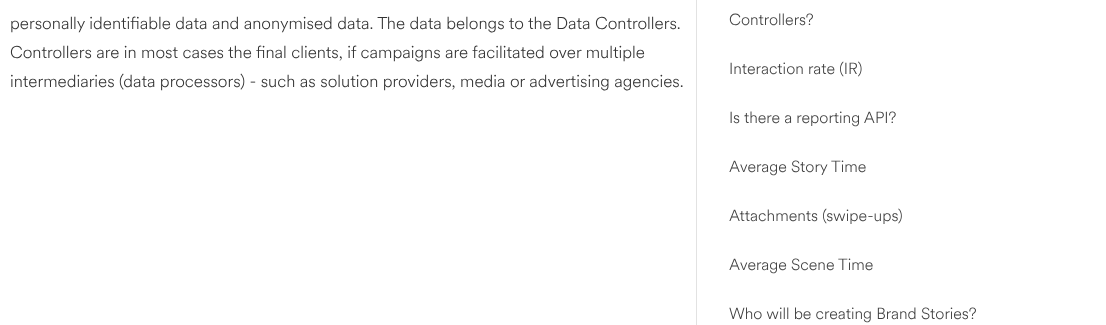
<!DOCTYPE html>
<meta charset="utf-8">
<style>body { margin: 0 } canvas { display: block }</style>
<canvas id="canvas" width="1106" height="325"></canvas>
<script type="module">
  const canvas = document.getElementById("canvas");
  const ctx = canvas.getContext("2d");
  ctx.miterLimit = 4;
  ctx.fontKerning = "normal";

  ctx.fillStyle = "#ffffff";
  ctx.fillRect(0, 0, 1106, 325);
  ctx.font = "300 17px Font";
  ctx.fillStyle = "#333333";
  ctx.fillText("personally identifiable data and anonymised data. The data belongs to the Data Controllers.", 10, 29);
  ctx.fillText("Controllers are in most cases the final clients, if campaigns are facilitated over multiple", 10, 58);
  ctx.fillText("intermediaries (data processors) - such as solution providers, media or advertising agencies.", 10, 87);
  ctx.fillStyle = "#e2e2e2";
  ctx.fillRect(696, 0, 1, 325);
  ctx.font = "300 16px Font";
  ctx.fillStyle = "#3f3f3f";
  ctx.fillText("Controllers?", 729, 25);
  ctx.fillText("Interaction rate (IR)", 729, 74);
  ctx.fillText("Is there a reporting API?", 729, 123);
  ctx.fillText("Average Story Time", 729, 172);
  ctx.fillText("Attachments (swipe-ups)", 729, 221);
  ctx.fillText("Average Scene Time", 729, 270);
  ctx.fillText("Who will be creating Brand Stories?", 729, 319);
</script>
